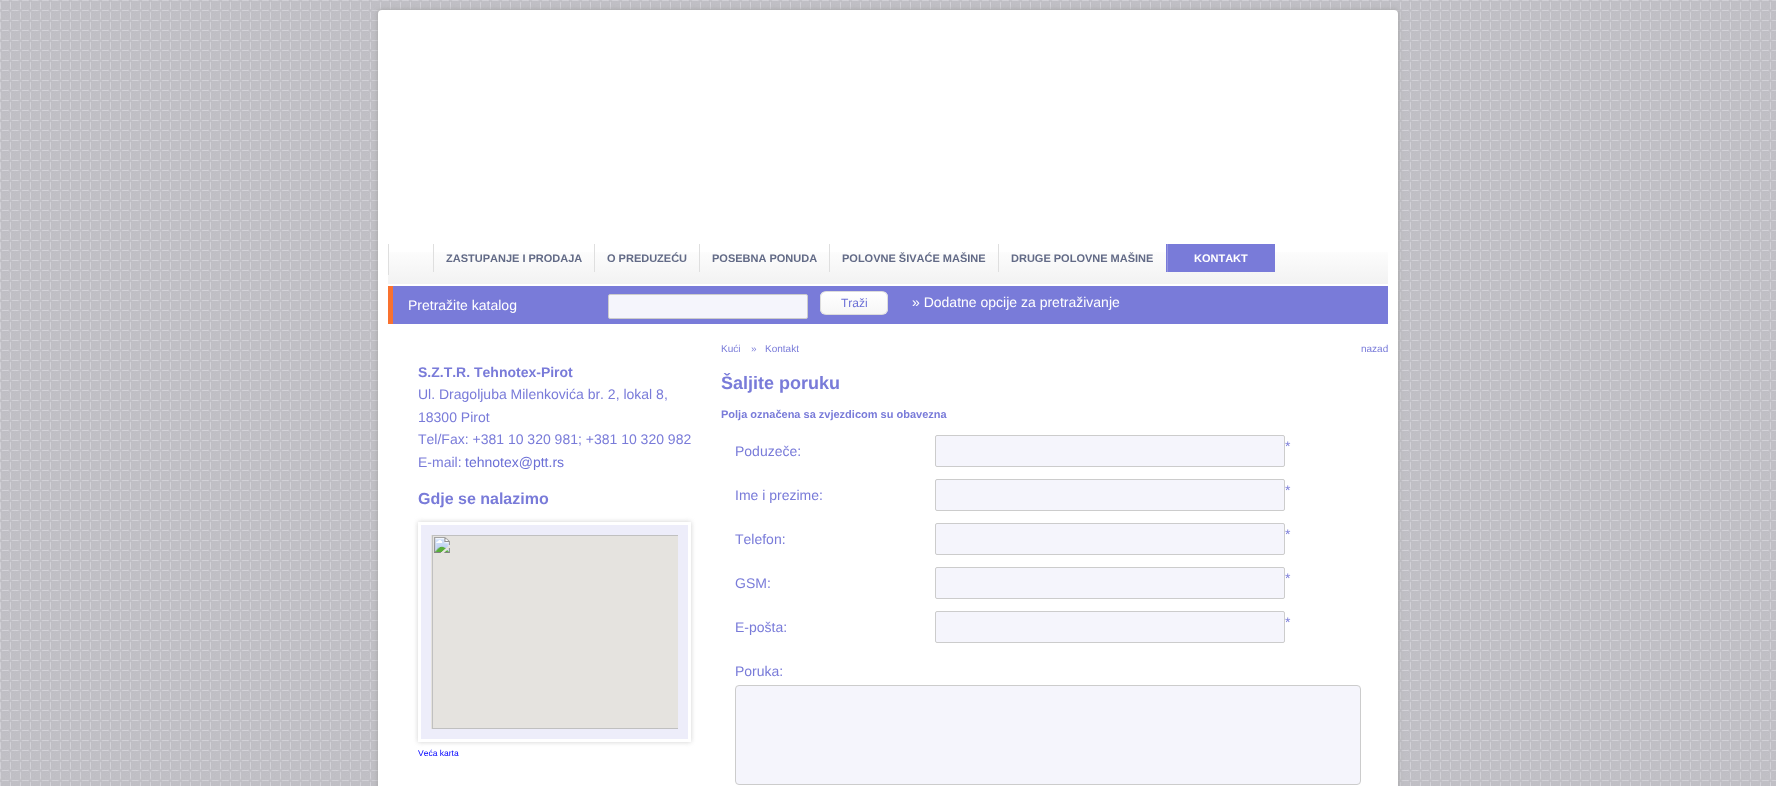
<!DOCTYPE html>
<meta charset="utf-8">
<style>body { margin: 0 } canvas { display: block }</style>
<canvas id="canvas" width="1776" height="786"></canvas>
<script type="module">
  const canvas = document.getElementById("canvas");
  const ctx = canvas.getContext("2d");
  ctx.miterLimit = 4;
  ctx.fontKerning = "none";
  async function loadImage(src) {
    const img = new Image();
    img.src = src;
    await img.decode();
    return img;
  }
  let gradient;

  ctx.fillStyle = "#ffffff";
  ctx.fillRect(0, 0, 1776, 786);
  ctx.drawImage(await loadImage("img1.png"), 0, 0, 1776, 786);
  ctx.fillStyle = "#a0a0a0";
  ctx.filter = "blur(2.5px)";
  ctx.beginPath();
  ctx.roundRect(378, 10, 1020, 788, 4);
  ctx.fill();
  ctx.filter = "none";
  ctx.fillStyle = "#ffffff";
  ctx.beginPath();
  ctx.roundRect(378, 10, 1020, 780, 4);
  ctx.fill();
  gradient = ctx.createLinearGradient(888, 244, 888, 284);
  gradient.addColorStop(0, "#ffffff");
  gradient.addColorStop(1, "#f2f2f2");
  ctx.fillStyle = gradient;
  ctx.fillRect(388, 252, 1000, 32);
  ctx.fillStyle = "#dfdfdf";
  ctx.fillRect(388, 244, 1, 31);
  ctx.fillRect(433, 244, 1, 28);
  ctx.font = "bold 11px Liberation Sans";
  ctx.fillStyle = "#626a86";
  ctx.fillText("ZASTUPANJE I PRODAJA", 446, 262);
  ctx.fillStyle = "#dfdfdf";
  ctx.fillRect(594, 244, 1, 28);
  ctx.fillStyle = "#626a86";
  ctx.fillText("O PREDUZEĆU", 607, 262);
  ctx.fillStyle = "#dfdfdf";
  ctx.fillRect(699, 244, 1, 28);
  ctx.fillStyle = "#626a86";
  ctx.fillText("POSEBNA PONUDA", 712, 262);
  ctx.fillStyle = "#dfdfdf";
  ctx.fillRect(829, 244, 1, 28);
  ctx.fillStyle = "#626a86";
  ctx.fillText("POLOVNE ŠIVAĆE MAŠINE", 842, 262);
  ctx.fillStyle = "#dfdfdf";
  ctx.fillRect(998, 244, 1, 28);
  ctx.fillStyle = "#626a86";
  ctx.fillText("DRUGE POLOVNE MAŠINE", 1011, 262);
  ctx.fillStyle = "#797bd9";
  ctx.fillRect(1166, 244, 109, 28);
  ctx.fillStyle = "#9495e1";
  ctx.fillRect(1167, 244, 1, 28);
  ctx.fillStyle = "#ffffff";
  ctx.fillText("KONTAKT", 1194, 262);
  ctx.fillStyle = "#797bd9";
  ctx.fillRect(393, 286, 995, 38);
  ctx.fillStyle = "#f9712f";
  ctx.fillRect(388, 286, 5, 38);
  ctx.font = "14px Liberation Sans";
  ctx.fillStyle = "#ffffff";
  ctx.fillText("Pretražite katalog", 408, 310);
  ctx.fillStyle = "#f5f5fc";
  ctx.beginPath();
  ctx.roundRect(608.5, 294.5, 199, 24, 1.5);
  ctx.fill();
  ctx.strokeStyle = "#cccccc";
  ctx.stroke();
  ctx.save();
  ctx.beginPath();
  ctx.roundRect(820, 291, 68, 24, 6);
  ctx.clip();
  gradient = ctx.createLinearGradient(854, 292, 854, 314);
  gradient.addColorStop(0.05, "#ffffff");
  gradient.addColorStop(1, "#f6f6f6");
  ctx.fillStyle = gradient;
  ctx.fillRect(820, 292, 68, 22);
  ctx.restore();
  ctx.fillStyle = "#ffffff";
  ctx.beginPath();
  ctx.moveTo(826, 293);
  ctx.lineTo(882, 293);
  ctx.bezierCurveTo(885, 293, 887, 295, 887, 298);
  ctx.bezierCurveTo(887, 290, 879, 292, 873, 292);
  ctx.lineTo(835, 292);
  ctx.bezierCurveTo(829, 292, 821, 290, 821, 298);
  ctx.bezierCurveTo(821, 295, 823, 293, 826, 293);
  ctx.closePath();
  ctx.fill();
  ctx.beginPath();
  ctx.roundRect(820.5, 291.5, 67, 23, 5.5);
  ctx.strokeStyle = "#dcdcdc";
  ctx.stroke();
  ctx.font = "12px Liberation Sans";
  ctx.fillStyle = "#6b6fd6";
  ctx.fillText("Traži", 841, 307);
  ctx.font = "14px Liberation Sans";
  ctx.fillStyle = "#ffffff";
  ctx.fillText("» Dodatne opcije za pretraživanje", 912, 307);
  ctx.font = "bold 14px Liberation Sans";
  ctx.fillStyle = "#797bd9";
  ctx.fillText("S.Z.T.R. Tehnotex-Pirot", 418, 377);
  ctx.font = "14px Liberation Sans";
  ctx.fillText("Ul. Dragoljuba Milenkovića br. 2, lokal 8,", 418, 399);
  ctx.fillText("18300 Pirot", 418, 422);
  ctx.fillText("Tel/Fax: +381 10 320 981; +381 10 320 982", 418, 444);
  ctx.fillText("E-mail:", 418, 467);
  ctx.fillStyle = "#6b6fd6";
  ctx.fillText("tehnotex@ptt.rs", 465, 467);
  ctx.font = "bold 16px Liberation Sans";
  ctx.fillStyle = "#797bd9";
  ctx.fillText("Gdje se nalazimo", 418, 504);
  ctx.fillStyle = "#cfcfcf";
  ctx.filter = "blur(2.5px)";
  ctx.beginPath();
  ctx.rect(418, 522, 273, 220);
  ctx.fill();
  ctx.filter = "none";
  ctx.fillStyle = "#ededfa";
  ctx.beginPath();
  ctx.rect(419.5, 523.5, 270, 217);
  ctx.fill();
  ctx.strokeStyle = "#ffffff";
  ctx.lineWidth = 3;
  ctx.stroke();
  ctx.drawImage(await loadImage("img2.png"), 431, 535, 247, 194);
  ctx.font = "8.5px Liberation Sans";
  ctx.fillStyle = "#0000ff";
  ctx.fillText("Veća karta", 418, 756);
  ctx.font = "10px Liberation Sans";
  ctx.fillStyle = "#797bd9";
  ctx.fillText("Kući", 721, 352);
  ctx.fillText("»", 751, 352);
  ctx.fillText("Kontakt", 765, 352);
  ctx.fillText("nazad", 1361, 352);
  ctx.font = "bold 18px Liberation Sans";
  ctx.fillText("Šaljite poruku", 721, 389);
  ctx.font = "bold 11px Liberation Sans";
  ctx.fillText("Polja označena sa zvjezdicom su obavezna", 721, 418);
  ctx.fillStyle = "#f5f5fc";
  ctx.beginPath();
  ctx.roundRect(935.5, 435.5, 349, 31, 1.5);
  ctx.fill();
  ctx.strokeStyle = "#cccccc";
  ctx.lineWidth = 1;
  ctx.stroke();
  ctx.font = "14px Liberation Sans";
  ctx.fillStyle = "#797bd9";
  ctx.fillText("*", 1285, 451);
  ctx.fillText("Poduzeče:", 735, 456);
  ctx.fillStyle = "#f5f5fc";
  ctx.beginPath();
  ctx.roundRect(935.5, 479.5, 349, 31, 1.5);
  ctx.fill();
  ctx.stroke();
  ctx.fillStyle = "#797bd9";
  ctx.fillText("*", 1285, 495);
  ctx.fillText("Ime i prezime:", 735, 500);
  ctx.fillStyle = "#f5f5fc";
  ctx.beginPath();
  ctx.roundRect(935.5, 523.5, 349, 31, 1.5);
  ctx.fill();
  ctx.stroke();
  ctx.fillStyle = "#797bd9";
  ctx.fillText("*", 1285, 539);
  ctx.fillText("Telefon:", 735, 544);
  ctx.fillStyle = "#f5f5fc";
  ctx.beginPath();
  ctx.roundRect(935.5, 567.5, 349, 31, 1.5);
  ctx.fill();
  ctx.stroke();
  ctx.fillStyle = "#797bd9";
  ctx.fillText("*", 1285, 583);
  ctx.fillText("GSM:", 735, 588);
  ctx.fillStyle = "#f5f5fc";
  ctx.beginPath();
  ctx.roundRect(935.5, 611.5, 349, 31, 1.5);
  ctx.fill();
  ctx.stroke();
  ctx.fillStyle = "#797bd9";
  ctx.fillText("*", 1285, 627);
  ctx.fillText("E-pošta:", 735, 632);
  ctx.fillText("Poruka:", 735, 676);
  ctx.fillStyle = "#f5f5fc";
  ctx.beginPath();
  ctx.roundRect(735.5, 685.5, 625, 99, 3.5);
  ctx.fill();
  ctx.stroke();
</script>
